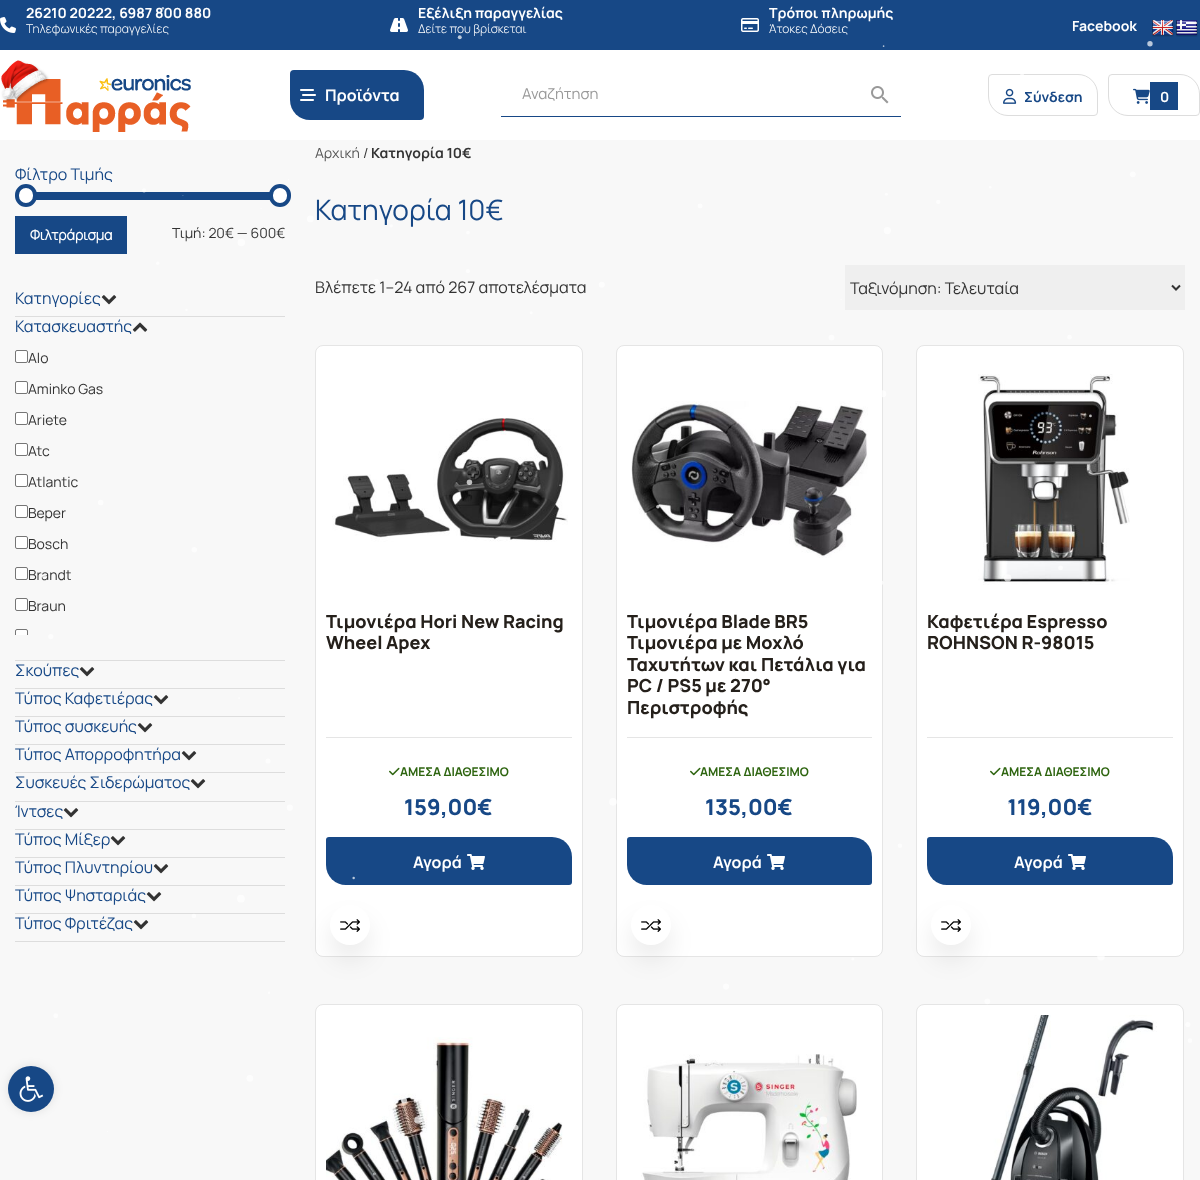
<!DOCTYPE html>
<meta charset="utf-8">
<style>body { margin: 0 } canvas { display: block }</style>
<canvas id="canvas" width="1200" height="1180"></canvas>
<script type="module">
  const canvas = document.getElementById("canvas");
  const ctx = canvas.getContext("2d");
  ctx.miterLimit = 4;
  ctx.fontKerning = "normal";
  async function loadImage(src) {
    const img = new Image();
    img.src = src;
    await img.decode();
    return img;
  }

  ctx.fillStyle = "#ffffff";
  ctx.fillRect(0, 0, 1200, 1180);
  ctx.fillStyle = "#174886";
  ctx.fillRect(0, 0, 1200, 50);
  ctx.drawImage(await loadImage("img1.png"), 0, 17, 16, 16);
  ctx.font = "bold 14px Manrope";
  ctx.fillStyle = "#ffffff";
  ctx.fillText("26210 20222, 6987 800 880", 26, 18);
  ctx.font = "300 12px Manrope";
  ctx.fillText("Τηλεφωνικές παραγγελίες", 26, 33);
  ctx.drawImage(await loadImage("img2.png"), 390, 18, 18, 14);
  ctx.font = "bold 14px Manrope";
  ctx.fillText("Εξέλιξη παραγγελίας", 418, 18);
  ctx.font = "300 12px Manrope";
  ctx.fillText("Δείτε που βρίσκεται", 418, 33);
  ctx.drawImage(await loadImage("img3.png"), 741, 18, 18, 14);
  ctx.font = "bold 14px Manrope";
  ctx.fillText("Τρόποι πληρωμής", 769, 18);
  ctx.font = "300 12px Manrope";
  ctx.fillText("Άτοκες Δόσεις", 769, 33);
  ctx.font = "bold 14px Manrope";
  ctx.fillText("Facebook", 1072, 31);
  ctx.drawImage(await loadImage("img4.png"), 1152, 20, 22, 17);
  ctx.drawImage(await loadImage("img5.png"), 1176, 20, 22, 17);
  ctx.drawImage(await loadImage("img6.png"), 1, 60, 190, 72);
  ctx.fillStyle = "#174886";
  ctx.beginPath();
  ctx.roundRect(290, 70, 134, 50, [4, 20, 4, 20]);
  ctx.fill();
  ctx.drawImage(await loadImage("img7.png"), 300, 89, 16, 12);
  ctx.font = "bold 16px Manrope";
  ctx.fillStyle = "#ffffff";
  ctx.fillText("Προϊόντα", 325, 101);
  ctx.fillStyle = "#174886";
  ctx.fillRect(501, 116, 400, 1);
  ctx.drawImage(await loadImage("img8.png"), 871, 86, 18, 18);
  ctx.font = "15px Manrope";
  ctx.fillStyle = "#999999";
  ctx.fillText("Αναζήτηση", 522, 99);
  ctx.beginPath();
  ctx.roundRect(988.5, 74.5, 109, 41, [3.5, 19.5, 3.5, 19.5]);
  ctx.strokeStyle = "#dddddd";
  ctx.stroke();
  ctx.drawImage(await loadImage("img9.png"), 1003, 88, 14, 16);
  ctx.font = "bold 14px Manrope";
  ctx.fillStyle = "#174886";
  ctx.fillText("Σύνδεση", 1024, 102);
  ctx.beginPath();
  ctx.roundRect(1108.5, 74.5, 91, 41, [3.5, 19.5, 3.5, 19.5]);
  ctx.stroke();
  ctx.drawImage(await loadImage("img10.png"), 1133, 88, 17, 16);
  ctx.fillRect(1150, 82, 28, 28);
  ctx.fillStyle = "#ffffff";
  ctx.fillText("0", 1160, 102);
  ctx.fillStyle = "#f8f8f8";
  ctx.fillRect(0, 140, 1200, 1040);
  ctx.font = "16px Manrope";
  ctx.fillStyle = "#174886";
  ctx.fillText("Φίλτρο Τιμής", 15, 180);
  ctx.fillRect(36, 192, 241, 8);
  ctx.fillStyle = "#ffffff";
  ctx.beginPath();
  ctx.roundRect(17, 186, 18, 19, 9);
  ctx.fill();
  ctx.strokeStyle = "#174886";
  ctx.lineWidth = 4;
  ctx.stroke();
  ctx.beginPath();
  ctx.roundRect(271, 186, 18, 19, 9);
  ctx.fill();
  ctx.stroke();
  ctx.fillStyle = "#174886";
  ctx.fillRect(15, 216, 112, 38);
  ctx.font = "bold 14px 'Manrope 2'";
  ctx.fillStyle = "#ffffff";
  ctx.fillText("Φιλτράρισμα", 30, 240);
  ctx.font = "14px Manrope";
  ctx.fillStyle = "#333333";
  ctx.fillText("Τιμή: 20€ — 600€", 172, 238);
  ctx.fillStyle = "#dddddd";
  ctx.fillRect(15, 316, 270, 1);
  ctx.font = "16px Manrope";
  ctx.fillStyle = "#174886";
  ctx.fillText("Κατηγορίες", 15, 304);
  ctx.drawImage(await loadImage("img12.png"), 101, 295, 16, 10);
  ctx.fillStyle = "#dddddd";
  ctx.fillRect(15, 660, 270, 1);
  ctx.fillStyle = "#174886";
  ctx.fillText("Κατασκευαστής", 15, 332);
  ctx.drawImage(await loadImage("img13.png"), 132, 322, 16, 10);
  ctx.fillStyle = "#ffffff";
  ctx.beginPath();
  ctx.roundRect(15.5, 350.5, 12, 12, 1.5);
  ctx.fill();
  ctx.strokeStyle = "#767676";
  ctx.lineWidth = 1;
  ctx.stroke();
  ctx.font = "14px Manrope";
  ctx.fillStyle = "#333333";
  ctx.fillText("Alo", 28, 363);
  ctx.fillStyle = "#ffffff";
  ctx.beginPath();
  ctx.roundRect(15.5, 381.5, 12, 12, 1.5);
  ctx.fill();
  ctx.stroke();
  ctx.fillStyle = "#333333";
  ctx.fillText("Aminko Gas", 28, 394);
  ctx.fillStyle = "#ffffff";
  ctx.beginPath();
  ctx.roundRect(15.5, 412.5, 12, 12, 1.5);
  ctx.fill();
  ctx.stroke();
  ctx.fillStyle = "#333333";
  ctx.fillText("Ariete", 28, 425);
  ctx.fillStyle = "#ffffff";
  ctx.beginPath();
  ctx.roundRect(15.5, 443.5, 12, 12, 1.5);
  ctx.fill();
  ctx.stroke();
  ctx.fillStyle = "#333333";
  ctx.fillText("Atc", 28, 456);
  ctx.fillStyle = "#ffffff";
  ctx.beginPath();
  ctx.roundRect(15.5, 474.5, 12, 12, 1.5);
  ctx.fill();
  ctx.stroke();
  ctx.fillStyle = "#333333";
  ctx.fillText("Atlantic", 28, 487);
  ctx.fillStyle = "#ffffff";
  ctx.beginPath();
  ctx.roundRect(15.5, 505.5, 12, 12, 1.5);
  ctx.fill();
  ctx.stroke();
  ctx.fillStyle = "#333333";
  ctx.fillText("Beper", 28, 518);
  ctx.fillStyle = "#ffffff";
  ctx.beginPath();
  ctx.roundRect(15.5, 536.5, 12, 12, 1.5);
  ctx.fill();
  ctx.stroke();
  ctx.fillStyle = "#333333";
  ctx.fillText("Bosch", 28, 549);
  ctx.fillStyle = "#ffffff";
  ctx.beginPath();
  ctx.roundRect(15.5, 567.5, 12, 12, 1.5);
  ctx.fill();
  ctx.stroke();
  ctx.fillStyle = "#333333";
  ctx.fillText("Brandt", 28, 580);
  ctx.fillStyle = "#ffffff";
  ctx.beginPath();
  ctx.roundRect(15.5, 598.5, 12, 12, 1.5);
  ctx.fill();
  ctx.stroke();
  ctx.fillStyle = "#333333";
  ctx.fillText("Braun", 28, 611);
  ctx.fillStyle = "#ffffff";
  ctx.beginPath();
  ctx.roundRect(15, 629, 13, 6, [2, 2, 0, 0]);
  ctx.fill();
  ctx.save();
  ctx.beginPath();
  ctx.rect(15, 345, 270, 290);
  ctx.clip();
  ctx.beginPath();
  ctx.roundRect(15.5, 629.5, 12, 12, 1.5);
  ctx.stroke();
  ctx.restore();
  ctx.fillStyle = "#dddddd";
  ctx.fillRect(15, 688, 270, 1);
  ctx.font = "16px Manrope";
  ctx.fillStyle = "#174886";
  ctx.fillText("Σκούπες", 15, 676);
  ctx.drawImage(await loadImage("img12.png"), 79, 667, 16, 10);
  ctx.fillStyle = "#dddddd";
  ctx.fillRect(15, 716, 270, 1);
  ctx.fillStyle = "#174886";
  ctx.fillText("Τύπος Καφετιέρας", 15, 704);
  ctx.drawImage(await loadImage("img12.png"), 153, 695, 16, 10);
  ctx.fillStyle = "#dddddd";
  ctx.fillRect(15, 744, 270, 1);
  ctx.fillStyle = "#174886";
  ctx.fillText("Τύπος συσκευής", 15, 732);
  ctx.drawImage(await loadImage("img12.png"), 137, 723, 16, 10);
  ctx.fillStyle = "#dddddd";
  ctx.fillRect(15, 772, 270, 1);
  ctx.fillStyle = "#174886";
  ctx.fillText("Τύπος Απορροφητήρα", 15, 760);
  ctx.drawImage(await loadImage("img12.png"), 181, 751, 16, 10);
  ctx.fillStyle = "#dddddd";
  ctx.fillRect(15, 801, 270, 1);
  ctx.fillStyle = "#174886";
  ctx.fillText("Συσκευές Σιδερώματος", 15, 788);
  ctx.drawImage(await loadImage("img12.png"), 190, 779, 16, 10);
  ctx.fillStyle = "#dddddd";
  ctx.fillRect(15, 829, 270, 1);
  ctx.fillStyle = "#174886";
  ctx.fillText("Ίντσες", 15, 817);
  ctx.drawImage(await loadImage("img12.png"), 63, 808, 16, 10);
  ctx.fillStyle = "#dddddd";
  ctx.fillRect(15, 857, 270, 1);
  ctx.fillStyle = "#174886";
  ctx.fillText("Τύπος Μίξερ", 15, 845);
  ctx.drawImage(await loadImage("img12.png"), 110, 836, 16, 10);
  ctx.fillStyle = "#dddddd";
  ctx.fillRect(15, 885, 270, 1);
  ctx.fillStyle = "#174886";
  ctx.fillText("Τύπος Πλυντηρίου", 15, 873);
  ctx.drawImage(await loadImage("img12.png"), 153, 864, 16, 10);
  ctx.fillStyle = "#dddddd";
  ctx.fillRect(15, 913, 270, 1);
  ctx.fillStyle = "#174886";
  ctx.fillText("Τύπος Ψησταριάς", 15, 901);
  ctx.drawImage(await loadImage("img12.png"), 146, 892, 16, 10);
  ctx.fillStyle = "#dddddd";
  ctx.fillRect(15, 941, 270, 1);
  ctx.fillStyle = "#174886";
  ctx.fillText("Τύπος Φριτέζας", 15, 929);
  ctx.drawImage(await loadImage("img12.png"), 133, 920, 16, 10);
  ctx.font = "14px Manrope";
  ctx.fillStyle = "#555555";
  ctx.fillText("Αρχική", 315, 158);
  ctx.fillStyle = "#333333";
  ctx.fillText("/", 363, 158);
  ctx.font = "bold 14px Manrope";
  ctx.fillText("Κατηγορία 10€", 371, 158);
  ctx.font = "28px Manrope";
  ctx.fillStyle = "#174886";
  ctx.fillText("Κατηγορία 10€", 315, 220);
  ctx.font = "16px Manrope";
  ctx.fillStyle = "#333333";
  ctx.fillText("Βλέπετε 1–24 από 267 αποτελέσματα", 315, 293);
  ctx.fillStyle = "#efefef";
  ctx.fillRect(845, 265, 340, 45);
  ctx.beginPath();
  ctx.moveTo(1172, 285.5);
  ctx.lineTo(1176, 289.5);
  ctx.lineTo(1180, 285.5);
  ctx.strokeStyle = "#333333";
  ctx.lineWidth = 2;
  ctx.stroke();
  ctx.fillStyle = "#333333";
  ctx.fillText("Ταξινόμηση: Τελευταία", 850, 294);
  ctx.fillStyle = "#ffffff";
  ctx.beginPath();
  ctx.roundRect(315.5, 345.5, 267, 611, 7.5);
  ctx.fill();
  ctx.strokeStyle = "#e5e5e5";
  ctx.lineWidth = 1;
  ctx.stroke();
  ctx.drawImage(await loadImage("img14.png"), 332, 418, 236, 124);
  ctx.font = "800 18px Manrope";
  ctx.fillStyle = "#25201b";
  ctx.fillText("Τιμονιέρα Hori New Racing", 326, 628);
  ctx.fillText("Wheel Apex", 326, 649);
  ctx.fillStyle = "#e5e5e5";
  ctx.fillRect(326, 737, 246, 1);
  ctx.drawImage(await loadImage("img15.png"), 389, 767, 11, 9);
  ctx.font = "bold 12px Manrope";
  ctx.fillStyle = "#2e6510";
  ctx.fillText("ΑΜΕΣΑ ΔΙΑΘΕΣΙΜΟ", 400, 776);
  ctx.font = "800 22px Manrope";
  ctx.fillStyle = "#174886";
  ctx.fillText("159,00€", 404, 815);
  ctx.fillStyle = "rgba(0, 0, 0, 0.08)";
  ctx.filter = "blur(12.5px)";
  ctx.beginPath();
  ctx.roundRect(330, 920, 40, 40, 20);
  ctx.fill();
  ctx.filter = "none";
  ctx.fillStyle = "#174886";
  ctx.beginPath();
  ctx.roundRect(326, 837, 246, 48, [3, 20, 3, 20]);
  ctx.fill();
  ctx.font = "bold 16px Manrope";
  ctx.fillStyle = "#ffffff";
  ctx.fillText("Αγορά", 413, 868);
  ctx.drawImage(await loadImage("img16.png"), 467, 854, 18, 16);
  ctx.beginPath();
  ctx.arc(350, 925, 20, 0, Math.PI * 2);
  ctx.fill();
  ctx.drawImage(await loadImage("img17.png"), 340, 919, 20, 13);
  ctx.beginPath();
  ctx.roundRect(616.5, 345.5, 266, 611, 7.5);
  ctx.fill();
  ctx.stroke();
  ctx.drawImage(await loadImage("img18.png"), 631, 401, 237, 157);
  ctx.font = "800 18px Manrope";
  ctx.fillStyle = "#25201b";
  ctx.fillText("Τιμονιέρα Blade BR5", 627, 628);
  ctx.fillText("Τιμονιέρα με Μοχλό", 627, 649);
  ctx.fillText("Ταχυτήτων και Πετάλια για", 627, 671);
  ctx.fillText("PC / PS5 με 270°", 627, 692);
  ctx.fillText("Περιστροφής", 627, 714);
  ctx.fillStyle = "#e5e5e5";
  ctx.fillRect(627, 737, 245, 1);
  ctx.drawImage(await loadImage("img15.png"), 690, 767, 11, 9);
  ctx.font = "bold 12px Manrope";
  ctx.fillStyle = "#2e6510";
  ctx.fillText("ΑΜΕΣΑ ΔΙΑΘΕΣΙΜΟ", 700, 776);
  ctx.font = "800 22px Manrope";
  ctx.fillStyle = "#174886";
  ctx.fillText("135,00€", 705, 815);
  ctx.fillStyle = "rgba(0, 0, 0, 0.08)";
  ctx.filter = "blur(12.5px)";
  ctx.beginPath();
  ctx.roundRect(631, 920, 40, 40, 20);
  ctx.fill();
  ctx.filter = "none";
  ctx.fillStyle = "#174886";
  ctx.beginPath();
  ctx.roundRect(627, 837, 245, 48, [3, 20, 3, 20]);
  ctx.fill();
  ctx.font = "bold 16px Manrope";
  ctx.fillStyle = "#ffffff";
  ctx.fillText("Αγορά", 713, 868);
  ctx.drawImage(await loadImage("img16.png"), 767, 854, 18, 16);
  ctx.beginPath();
  ctx.arc(651, 925, 20, 0, Math.PI * 2);
  ctx.fill();
  ctx.drawImage(await loadImage("img17.png"), 641, 919, 20, 13);
  ctx.beginPath();
  ctx.roundRect(916.5, 345.5, 267, 611, 7.5);
  ctx.fill();
  ctx.stroke();
  ctx.drawImage(await loadImage("img19.png"), 978, 374, 152, 211);
  ctx.font = "800 18px Manrope";
  ctx.fillStyle = "#25201b";
  ctx.fillText("Καφετιέρα Espresso", 927, 628);
  ctx.fillText("ROHNSON R-98015", 927, 649);
  ctx.fillStyle = "#e5e5e5";
  ctx.fillRect(927, 737, 246, 1);
  ctx.drawImage(await loadImage("img15.png"), 990, 767, 11, 9);
  ctx.font = "bold 12px Manrope";
  ctx.fillStyle = "#2e6510";
  ctx.fillText("ΑΜΕΣΑ ΔΙΑΘΕΣΙΜΟ", 1001, 776);
  ctx.font = "800 22px Manrope";
  ctx.fillStyle = "#174886";
  ctx.fillText("119,00€", 1007, 815);
  ctx.fillStyle = "rgba(0, 0, 0, 0.08)";
  ctx.filter = "blur(12.5px)";
  ctx.beginPath();
  ctx.roundRect(931, 920, 40, 40, 20);
  ctx.fill();
  ctx.filter = "none";
  ctx.fillStyle = "#174886";
  ctx.beginPath();
  ctx.roundRect(927, 837, 246, 48, [3, 20, 3, 20]);
  ctx.fill();
  ctx.font = "bold 16px Manrope";
  ctx.fillStyle = "#ffffff";
  ctx.fillText("Αγορά", 1014, 868);
  ctx.drawImage(await loadImage("img16.png"), 1068, 854, 18, 16);
  ctx.beginPath();
  ctx.arc(951, 925, 20, 0, Math.PI * 2);
  ctx.fill();
  ctx.drawImage(await loadImage("img17.png"), 941, 919, 20, 13);
  ctx.beginPath();
  ctx.roundRect(315.5, 1004.5, 267, 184, 7.5);
  ctx.fill();
  ctx.stroke();
  ctx.drawImage(await loadImage("img20.png"), 326, 1037, 237, 143);
  ctx.beginPath();
  ctx.roundRect(616.5, 1004.5, 266, 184, 7.5);
  ctx.fill();
  ctx.stroke();
  ctx.drawImage(await loadImage("img21.png"), 641, 1054, 216, 126);
  ctx.beginPath();
  ctx.roundRect(916.5, 1004.5, 267, 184, 7.5);
  ctx.fill();
  ctx.stroke();
  ctx.drawImage(await loadImage("img22.png"), 990, 1015, 167, 165);
  ctx.drawImage(await loadImage("img11.png"), 27, 7, 1165, 1125);
  ctx.fillStyle = "rgba(0, 0, 0, 0.1)";
  ctx.filter = "blur(5px)";
  ctx.beginPath();
  ctx.roundRect(8, 1066, 46, 46, 23);
  ctx.fill();
  ctx.filter = "none";
  ctx.fillStyle = "#174886";
  ctx.beginPath();
  ctx.arc(31, 1089, 23, 0, Math.PI * 2);
  ctx.fill();
  ctx.drawImage(await loadImage("img23.png"), 19, 1076, 25, 26);
</script>
